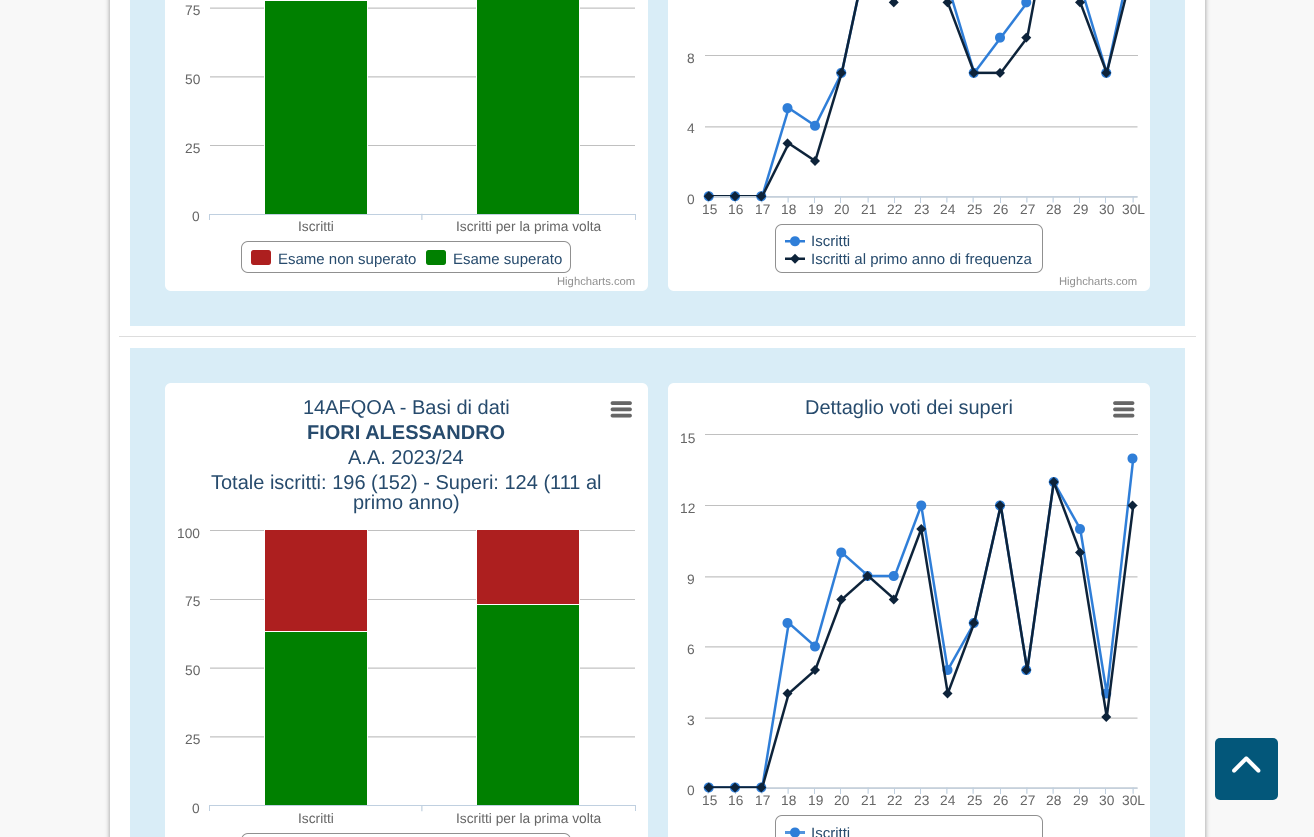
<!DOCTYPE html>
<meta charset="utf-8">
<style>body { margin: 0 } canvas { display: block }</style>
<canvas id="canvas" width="1314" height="837"></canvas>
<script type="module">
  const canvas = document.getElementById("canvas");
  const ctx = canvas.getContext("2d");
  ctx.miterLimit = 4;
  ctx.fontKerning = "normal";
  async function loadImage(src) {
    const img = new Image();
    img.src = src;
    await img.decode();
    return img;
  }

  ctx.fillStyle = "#f8f8f8";
  ctx.fillRect(0, 0, 1314, 837);
  ctx.fillStyle = "rgba(0, 0, 0, 0.4)";
  ctx.filter = "blur(2.5px)";
  ctx.beginPath();
  ctx.rect(110, -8, 1095, 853);
  ctx.fill();
  ctx.filter = "none";
  ctx.fillStyle = "#ffffff";
  ctx.fillRect(110, 0, 1095, 837);
  ctx.fillStyle = "#d9edf7";
  ctx.fillRect(130, 0, 1055, 326);
  ctx.drawImage(await loadImage("img1.png"), 165, 0, 483, 291);
  ctx.font = "13.75px Liberation Sans";
  ctx.fillStyle = "#666666";
  ctx.fillText("75", 185, 15);
  ctx.fillText("50", 185, 84);
  ctx.fillText("25", 185, 153);
  ctx.fillText("0", 192, 221);
  ctx.fillText("Iscritti", 298, 231);
  ctx.fillText("Iscritti per la prima volta", 456, 231);
  ctx.font = "15px Liberation Sans";
  ctx.fillStyle = "#274b6d";
  ctx.fillText("Esame non superato", 278, 264);
  ctx.fillText("Esame superato", 453, 264);
  ctx.font = "11.25px Liberation Sans";
  ctx.fillStyle = "#909090";
  ctx.fillText("Highcharts.com", 557, 285);
  ctx.drawImage(await loadImage("img2.png"), 668, 0, 482, 291);
  ctx.font = "13.75px Liberation Sans";
  ctx.fillStyle = "#666666";
  ctx.fillText("8", 687, 63);
  ctx.fillText("4", 687, 133);
  ctx.fillText("0", 687, 204);
  ctx.fillText("15", 702, 214);
  ctx.fillText("16", 728, 214);
  ctx.fillText("17", 755, 214);
  ctx.fillText("18", 781, 214);
  ctx.fillText("19", 808, 214);
  ctx.fillText("20", 834, 214);
  ctx.fillText("21", 861, 214);
  ctx.fillText("22", 887, 214);
  ctx.fillText("23", 914, 214);
  ctx.fillText("24", 940, 214);
  ctx.fillText("25", 967, 214);
  ctx.fillText("26", 993, 214);
  ctx.fillText("27", 1020, 214);
  ctx.fillText("28", 1046, 214);
  ctx.fillText("29", 1073, 214);
  ctx.fillText("30", 1099, 214);
  ctx.fillText("30L", 1122, 214);
  ctx.font = "15px Liberation Sans";
  ctx.fillStyle = "#274b6d";
  ctx.fillText("Iscritti", 811, 246);
  ctx.fillText("Iscritti al primo anno di frequenza", 811, 264);
  ctx.font = "11.25px Liberation Sans";
  ctx.fillStyle = "#909090";
  ctx.fillText("Highcharts.com", 1059, 285);
  ctx.fillStyle = "#dddddd";
  ctx.fillRect(119, 336, 1077, 1);
  ctx.fillStyle = "#d9edf7";
  ctx.fillRect(130, 348, 1055, 489);
  ctx.drawImage(await loadImage("img3.png"), 165, 383, 483, 454);
  ctx.font = "20px Liberation Sans";
  ctx.fillStyle = "#274b6d";
  ctx.fillText("14AFQOA - Basi di dati", 303, 414);
  ctx.font = "bold 20px Liberation Sans";
  ctx.fillText("FIORI ALESSANDRO", 307, 439);
  ctx.font = "20px Liberation Sans";
  ctx.fillText("A.A. 2023/24", 348, 464);
  ctx.fillText("Totale iscritti: 196 (152) - Superi: 124 (111 al", 211, 489);
  ctx.fillText("primo anno)", 353, 509);
  ctx.font = "13.75px Liberation Sans";
  ctx.fillStyle = "#666666";
  ctx.fillText("100", 177, 538);
  ctx.fillText("75", 185, 606);
  ctx.fillText("50", 185, 675);
  ctx.fillText("25", 185, 744);
  ctx.fillText("0", 192, 813);
  ctx.fillText("Iscritti", 298, 823);
  ctx.fillText("Iscritti per la prima volta", 456, 823);
  ctx.drawImage(await loadImage("img4.png"), 668, 383, 482, 454);
  ctx.font = "20px Liberation Sans";
  ctx.fillStyle = "#274b6d";
  ctx.fillText("Dettaglio voti dei superi", 805, 414);
  ctx.font = "13.75px Liberation Sans";
  ctx.fillStyle = "#666666";
  ctx.fillText("15", 680, 443);
  ctx.fillText("12", 680, 513);
  ctx.fillText("9", 687, 584);
  ctx.fillText("6", 687, 654);
  ctx.fillText("3", 687, 725);
  ctx.fillText("0", 687, 795);
  ctx.fillText("15", 702, 805);
  ctx.fillText("16", 728, 805);
  ctx.fillText("17", 755, 805);
  ctx.fillText("18", 781, 805);
  ctx.fillText("19", 808, 805);
  ctx.fillText("20", 834, 805);
  ctx.fillText("21", 861, 805);
  ctx.fillText("22", 887, 805);
  ctx.fillText("23", 914, 805);
  ctx.fillText("24", 940, 805);
  ctx.fillText("25", 967, 805);
  ctx.fillText("26", 993, 805);
  ctx.fillText("27", 1020, 805);
  ctx.fillText("28", 1046, 805);
  ctx.fillText("29", 1073, 805);
  ctx.fillText("30", 1099, 805);
  ctx.fillText("30L", 1122, 805);
  ctx.font = "15px Liberation Sans";
  ctx.fillStyle = "#274b6d";
  ctx.fillText("Iscritti", 811, 838);
  ctx.fillStyle = "#03577a";
  ctx.beginPath();
  ctx.roundRect(1215, 738, 63, 62, 5);
  ctx.fill();
  ctx.drawImage(await loadImage("img5.png"), 1232, 756, 29, 17);
</script>
